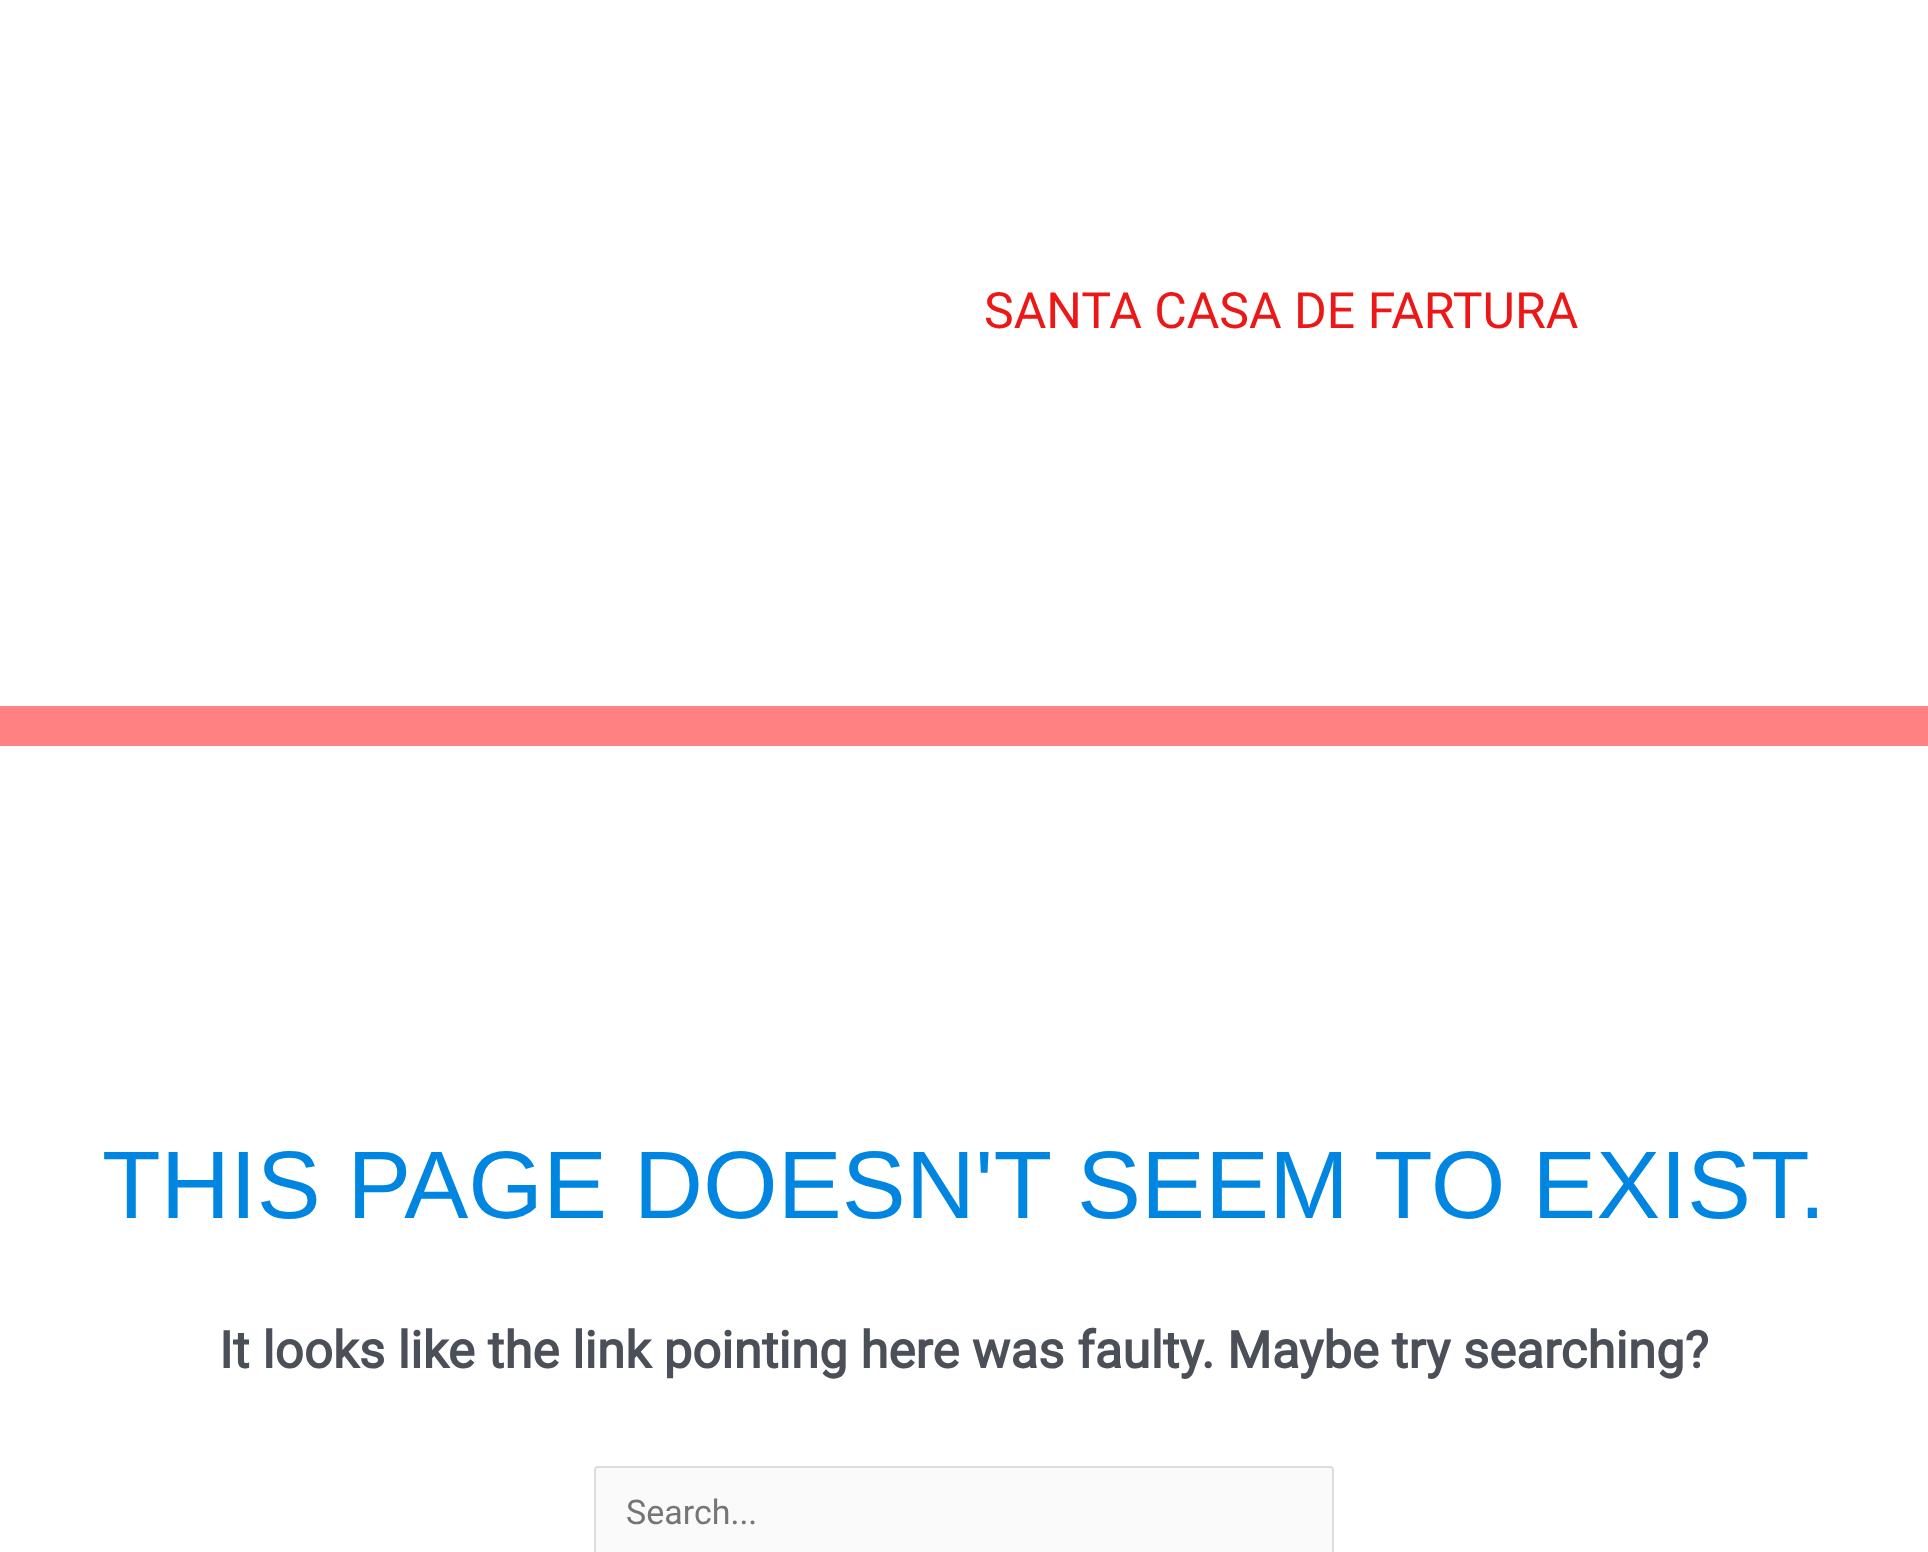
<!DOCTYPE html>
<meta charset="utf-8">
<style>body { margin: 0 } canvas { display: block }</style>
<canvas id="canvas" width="1928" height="1552"></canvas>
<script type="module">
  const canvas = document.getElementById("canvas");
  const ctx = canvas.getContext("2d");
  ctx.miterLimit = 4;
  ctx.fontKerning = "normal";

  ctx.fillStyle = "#ffffff";
  ctx.fillRect(0, 0, 1928, 1552);
  ctx.font = "50px Roboto";
  ctx.fillStyle = "#ec1818";
  ctx.fillText("SANTA CASA DE FARTURA", 984, 328);
  ctx.fillStyle = "#ff8181";
  ctx.fillRect(0, 706, 1928, 40);
  ctx.font = "96px Liberation Sans";
  ctx.fillStyle = "#0086e0";
  ctx.fillText("THIS PAGE DOESN'T SEEM TO EXIST.", 102, 1218);
  ctx.font = "bold 51px Roboto";
  ctx.fillStyle = "#4b4f58";
  ctx.fillText("It looks like the link pointing here was faulty. Maybe try searching?", 219, 1368);
  ctx.fillStyle = "#fafafa";
  ctx.beginPath();
  ctx.roundRect(595, 1467, 738, 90, 3);
  ctx.fill();
  ctx.strokeStyle = "#dddddd";
  ctx.lineWidth = 2;
  ctx.stroke();
  ctx.font = "34px Roboto";
  ctx.fillStyle = "#757575";
  ctx.fillText("Search...", 626, 1524);
</script>
